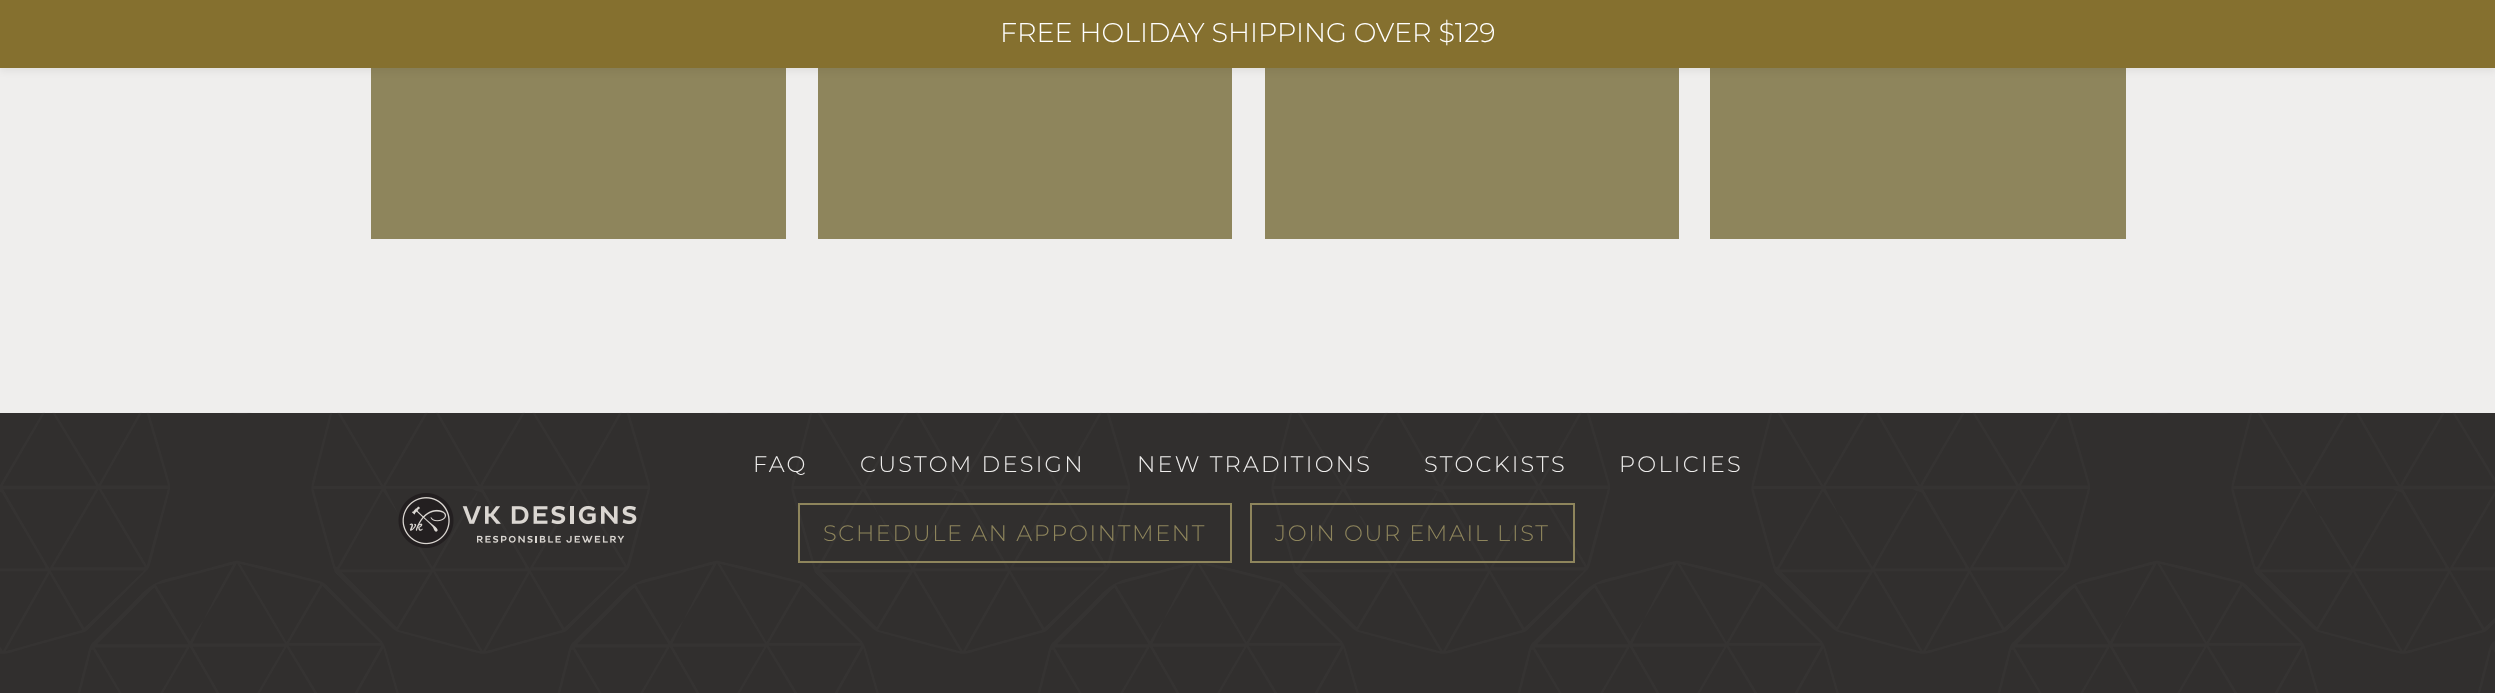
<!DOCTYPE html>
<meta charset="utf-8">
<style>body { margin: 0 } canvas { display: block }</style>
<canvas id="canvas" width="2495" height="693"></canvas>
<script type="module">
  const canvas = document.getElementById("canvas");
  const ctx = canvas.getContext("2d");
  ctx.miterLimit = 4;
  ctx.fontKerning = "normal";
  async function loadImage(src) {
    const img = new Image();
    img.src = src;
    await img.decode();
    return img;
  }

  ctx.fillStyle = "#efeeed";
  ctx.fillRect(0, 0, 2495, 693);
  ctx.fillStyle = "#8e855c";
  ctx.fillRect(371, 68, 415, 171);
  ctx.fillRect(818, 68, 414, 171);
  ctx.fillRect(1265, 68, 414, 171);
  ctx.fillRect(1710, 68, 416, 171);
  ctx.fillStyle = "rgba(0, 0, 0, 0.05)";
  ctx.filter = "blur(3px)";
  ctx.beginPath();
  ctx.rect(0, 5, 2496, 67);
  ctx.fill();
  ctx.filter = "none";
  ctx.fillStyle = "#85702f";
  ctx.fillRect(0, 0, 2495, 68);
  ctx.font = "300 27px Montserrat";
  ctx.fillStyle = "#ffffff";
  ctx.fillText("FREE HOLIDAY SHIPPING OVER $129", 1000, 42);
  ctx.fillStyle = "#312f2e";
  ctx.fillRect(0, 413, 2495, 280);
  ctx.drawImage(await loadImage("img1.png"), 0, 412, 2495, 281);
  ctx.letterSpacing = "2.25px";
  ctx.font = "300 22.5px Montserrat";
  ctx.fillStyle = "#efeeed";
  ctx.fillText("FAQ", 753, 472);
  ctx.fillText("CUSTOM DESIGN", 860, 472);
  ctx.fillText("NEW TRADITIONS", 1137, 472);
  ctx.fillText("STOCKISTS", 1424, 472);
  ctx.fillText("POLICIES", 1619, 472);
  ctx.drawImage(await loadImage("img2.png"), 398, 493, 239, 55);
  ctx.strokeStyle = "#8e855c";
  ctx.lineWidth = 2;
  ctx.strokeRect(799, 504, 432, 58);
  ctx.letterSpacing = "1.65px";
  ctx.fillStyle = "#8e855c";
  ctx.fillText("SCHEDULE AN APPOINTMENT", 823, 541);
  ctx.strokeRect(1251, 504, 323, 58);
  ctx.fillText("JOIN OUR EMAIL LIST", 1275, 541);
</script>
